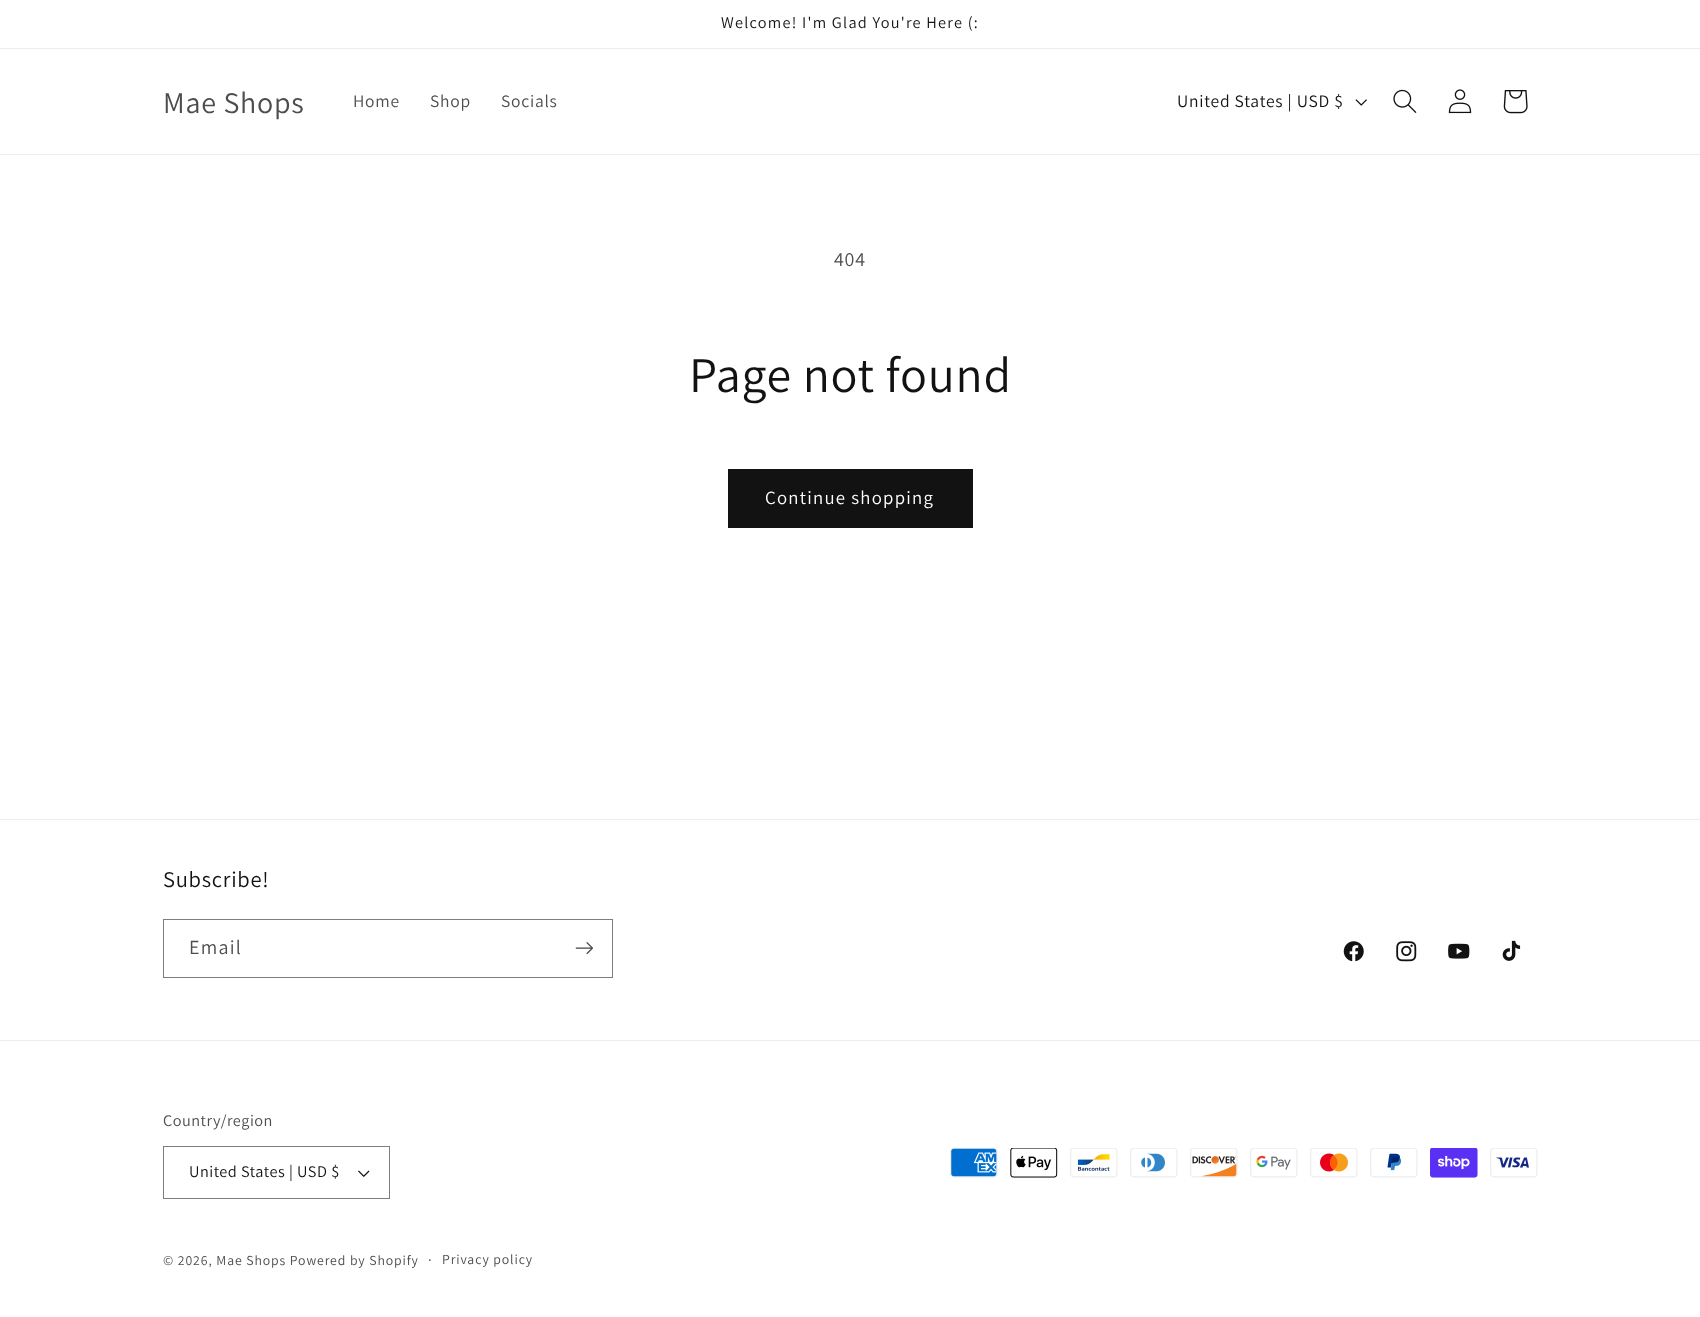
<!DOCTYPE html>
<meta charset="utf-8">
<style>body { margin: 0 } canvas { display: block }</style>
<canvas id="canvas" width="1700" height="1317"></canvas>
<script type="module">
  const canvas = document.getElementById("canvas");
  const ctx = canvas.getContext("2d");
  ctx.miterLimit = 4;
  ctx.fontKerning = "normal";
  async function loadImage(src) {
    const img = new Image();
    img.src = src;
    await img.decode();
    return img;
  }

  ctx.fillStyle = "#ffffff";
  ctx.fillRect(0, 0, 1700, 1317);
  ctx.fillStyle = "#ececec";
  ctx.fillRect(0, 48, 1700, 1);
  ctx.letterSpacing = "1.25px";
  ctx.font = "16.25px Assistant";
  ctx.fillStyle = "#121212";
  ctx.fillText("Welcome! I'm Glad You're Here (:", 721, 28);
  ctx.fillStyle = "#ececec";
  ctx.fillRect(0, 154, 1700, 1);
  ctx.letterSpacing = "0.75px";
  ctx.font = "30px Assistant";
  ctx.fillStyle = "#4d4d4d";
  ctx.fillText("Mae Shops", 163, 113);
  ctx.font = "17.5px Assistant";
  ctx.fillText("Home", 353, 107);
  ctx.fillText("Shop", 430, 107);
  ctx.fillText("Socials", 501, 107);
  ctx.fillStyle = "#121212";
  ctx.fillText("United States | USD $", 1177, 107);
  ctx.drawImage(await loadImage("img1.png"), 1355, 99, 12, 7);
  ctx.drawImage(await loadImage("img2.png"), 1393, 89, 24, 24);
  ctx.drawImage(await loadImage("img3.png"), 1448, 89, 24, 25);
  ctx.drawImage(await loadImage("img4.png"), 1503, 90, 25, 24);
  ctx.font = "20px Assistant";
  ctx.fillStyle = "#4d4d4d";
  ctx.fillText("404", 834, 266);
  ctx.font = "50px Assistant";
  ctx.fillStyle = "#121212";
  ctx.fillText("Page not found", 689, 392);
  ctx.fillRect(728, 469, 245, 59);
  ctx.letterSpacing = "1.25px";
  ctx.font = "18.75px Assistant";
  ctx.fillStyle = "#ffffff";
  ctx.fillText("Continue shopping", 765, 504);
  ctx.fillStyle = "#ececec";
  ctx.fillRect(0, 819, 1700, 1);
  ctx.letterSpacing = "0.75px";
  ctx.font = "22.5px Assistant";
  ctx.fillStyle = "#121212";
  ctx.fillText("Subscribe!", 163, 887);
  ctx.strokeStyle = "#7d7d7d";
  ctx.strokeRect(163.5, 919.5, 449, 58);
  ctx.letterSpacing = "1.25px";
  ctx.font = "20px Assistant";
  ctx.fillStyle = "#4d4d4d";
  ctx.fillText("Email", 189, 954);
  ctx.drawImage(await loadImage("img5.png"), 575, 942, 18, 13);
  ctx.drawImage(await loadImage("img6.png"), 1343, 941, 21, 21);
  ctx.drawImage(await loadImage("img7.png"), 1396, 941, 21, 21);
  ctx.drawImage(await loadImage("img8.png"), 1448, 943, 22, 16);
  ctx.drawImage(await loadImage("img9.png"), 1502, 940, 19, 21);
  ctx.fillStyle = "#ececec";
  ctx.fillRect(0, 1040, 1700, 1);
  ctx.letterSpacing = "0.5px";
  ctx.font = "16.25px Assistant";
  ctx.fillStyle = "#4d4d4d";
  ctx.fillText("Country/region", 163, 1126);
  ctx.drawImage(await loadImage("img10.png"), 358, 1170, 12, 7);
  ctx.strokeRect(163.5, 1146.5, 226, 52);
  ctx.fillStyle = "#121212";
  ctx.fillText("United States | USD $", 189, 1177);
  ctx.drawImage(await loadImage("img11.png"), 950, 1148, 48, 30);
  ctx.drawImage(await loadImage("img12.png"), 1010, 1148, 48, 30);
  ctx.drawImage(await loadImage("img13.png"), 1070, 1148, 48, 30);
  ctx.drawImage(await loadImage("img14.png"), 1130, 1148, 48, 30);
  ctx.drawImage(await loadImage("img15.png"), 1190, 1148, 48, 30);
  ctx.drawImage(await loadImage("img16.png"), 1250, 1148, 48, 30);
  ctx.drawImage(await loadImage("img17.png"), 1310, 1148, 48, 30);
  ctx.drawImage(await loadImage("img18.png"), 1370, 1148, 48, 30);
  ctx.drawImage(await loadImage("img19.png"), 1430, 1148, 48, 30);
  ctx.drawImage(await loadImage("img20.png"), 1490, 1148, 48, 30);
  ctx.letterSpacing = "0.9px";
  ctx.font = "13.75px Assistant";
  ctx.fillStyle = "#4d4d4d";
  ctx.fillText("© 2026, Mae Shops Powered by Shopify", 163, 1265);
  ctx.font = "15px Assistant";
  ctx.fillText("·", 428, 1265);
  ctx.font = "13.75px Assistant";
  ctx.fillText("Privacy policy", 442, 1264);
</script>
